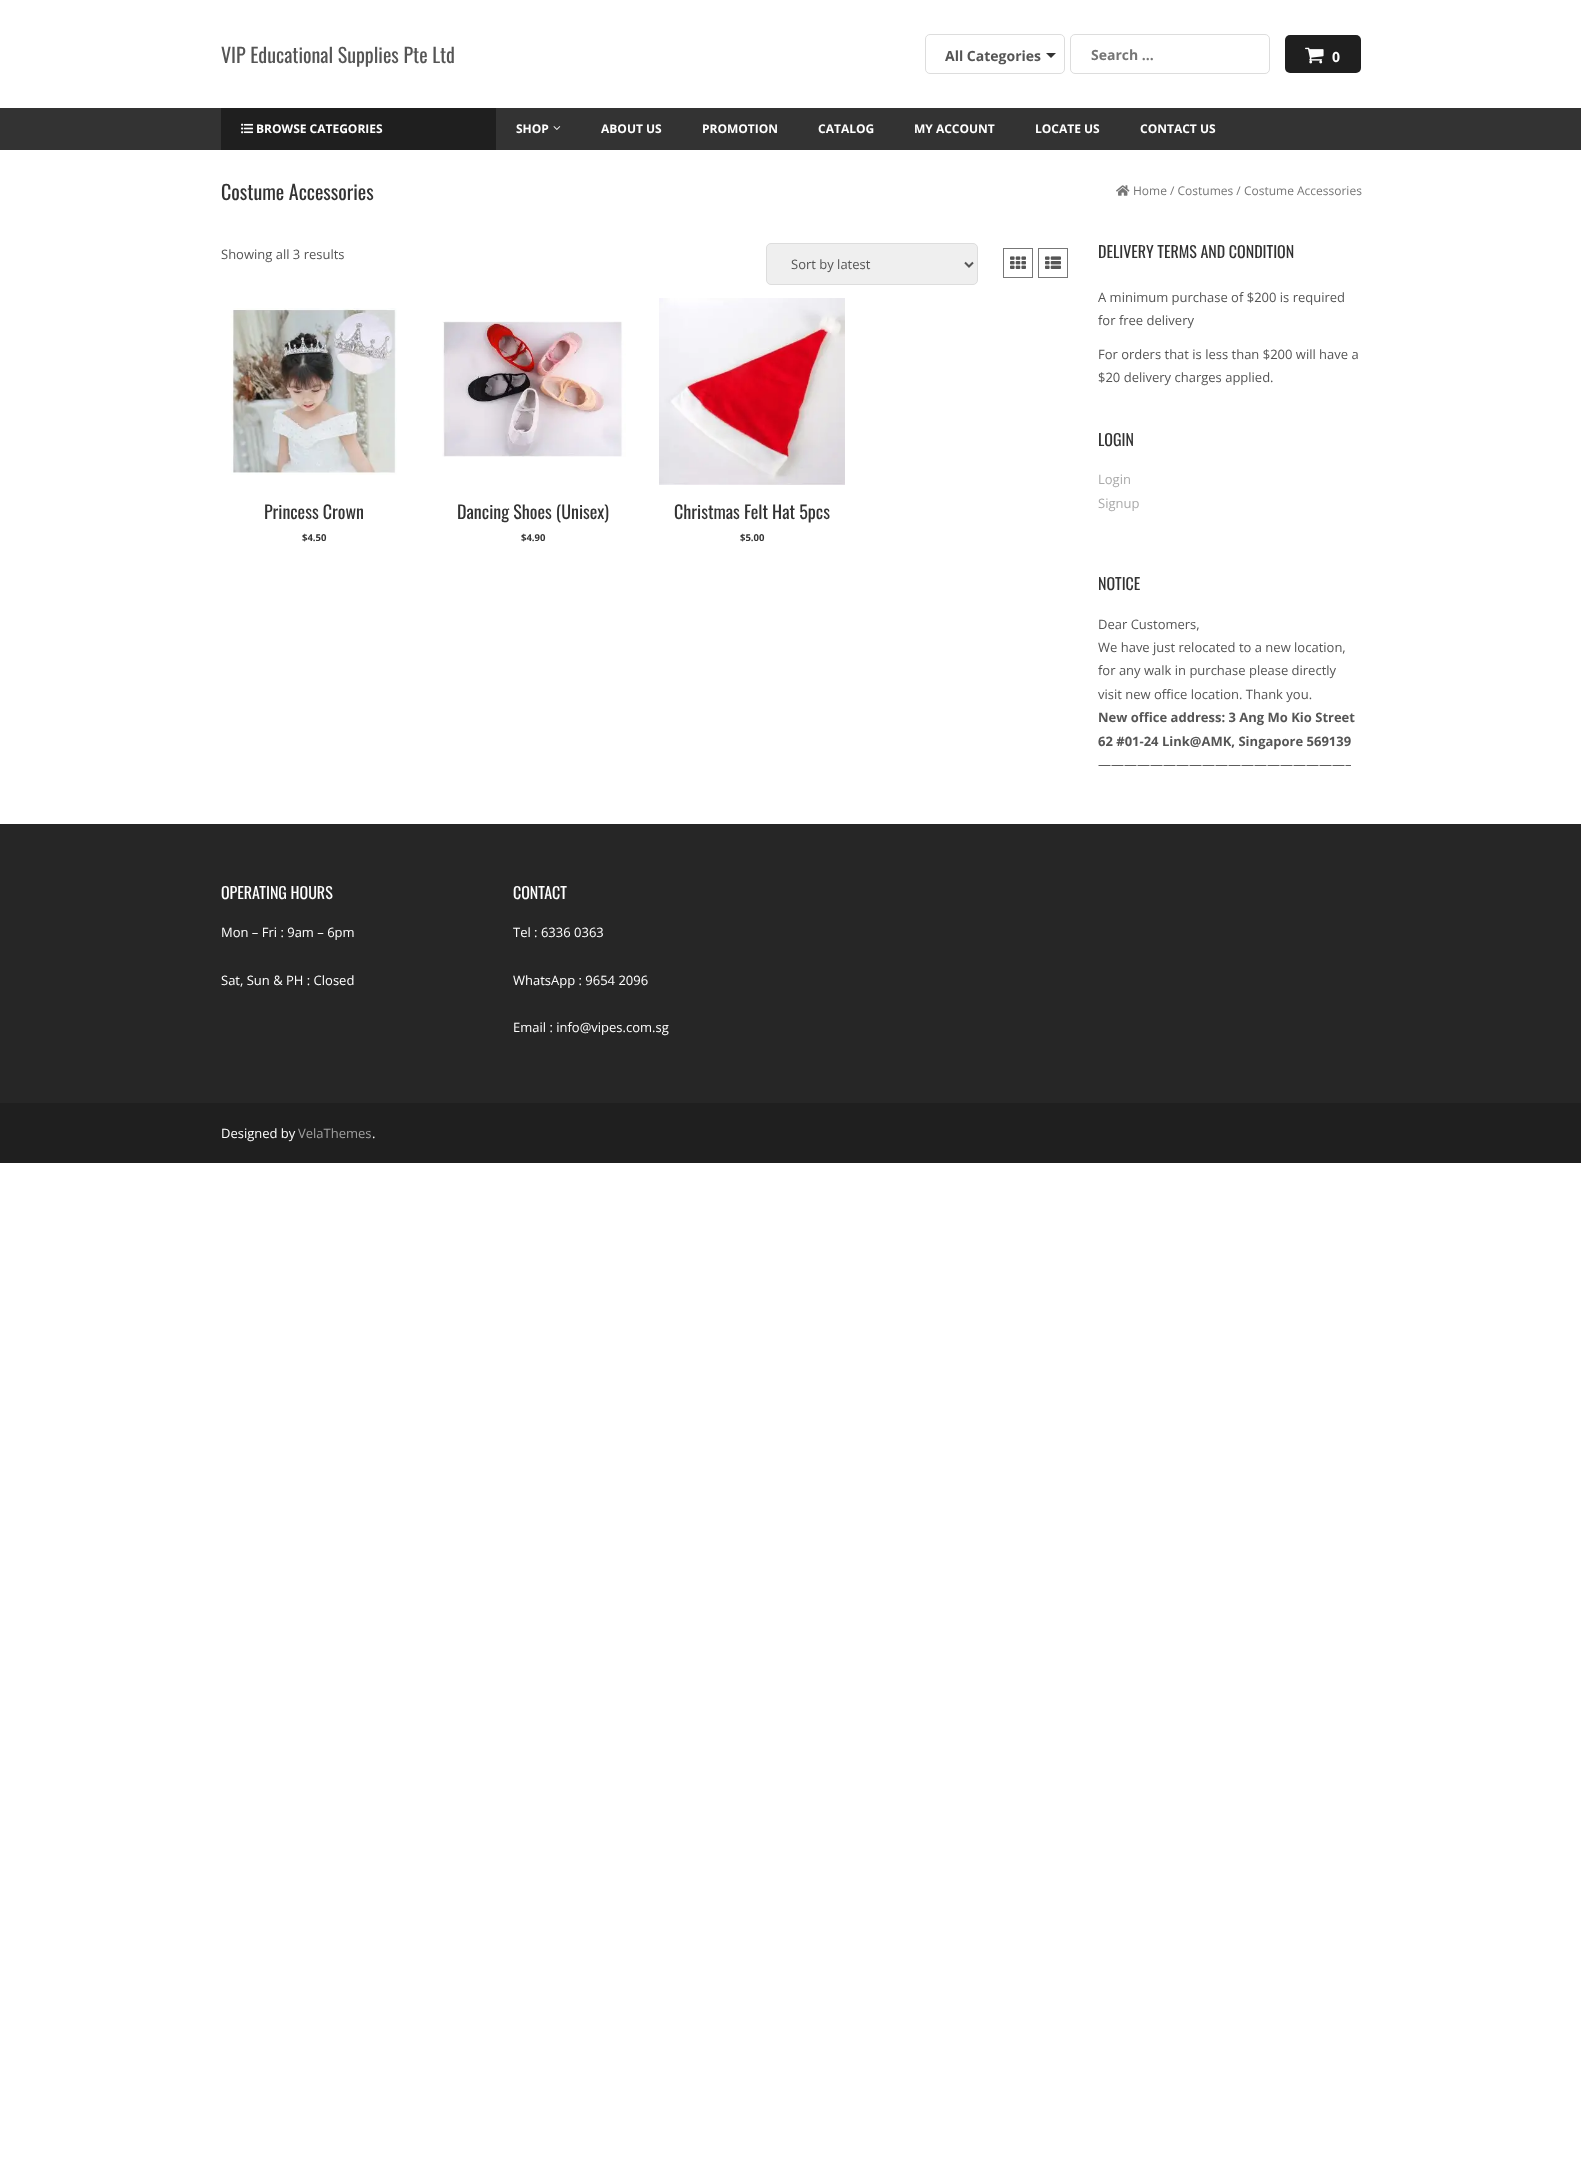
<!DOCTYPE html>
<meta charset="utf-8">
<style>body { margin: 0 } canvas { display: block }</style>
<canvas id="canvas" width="1581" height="2163"></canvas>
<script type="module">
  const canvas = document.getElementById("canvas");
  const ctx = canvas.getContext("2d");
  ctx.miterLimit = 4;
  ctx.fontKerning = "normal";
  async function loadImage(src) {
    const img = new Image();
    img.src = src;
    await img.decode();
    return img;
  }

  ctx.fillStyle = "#ffffff";
  ctx.fillRect(0, 0, 1581, 2163);
  ctx.font = "20px Oswald";
  ctx.fillStyle = "#555555";
  ctx.fillText("VIP Educational Supplies Pte Ltd", 221, 63);
  ctx.beginPath();
  ctx.roundRect(925.5, 34.5, 139, 39, 4.5);
  ctx.strokeStyle = "#dddddd";
  ctx.stroke();
  ctx.font = "bold 14px Open Sans";
  ctx.fillText("All Categories", 945, 61);
  ctx.fillStyle = "#333333";
  ctx.beginPath();
  ctx.moveTo(1046, 53);
  ctx.lineTo(1056, 53);
  ctx.lineTo(1051, 58);
  ctx.closePath();
  ctx.fill();
  ctx.beginPath();
  ctx.roundRect(1070.5, 34.5, 199, 39, 4.5);
  ctx.stroke();
  ctx.fillStyle = "#767676";
  ctx.fillText("Search ...", 1091, 60);
  ctx.fillStyle = "#1f1f1f";
  ctx.beginPath();
  ctx.roundRect(1285, 35, 76, 38, 5);
  ctx.fill();
  ctx.drawImage(await loadImage("img1.png"), 1305, 47, 19, 17);
  ctx.fillStyle = "#ffffff";
  ctx.fillText("0", 1332, 62);
  ctx.fillStyle = "#333333";
  ctx.fillRect(0, 108, 1581, 42);
  ctx.fillStyle = "#1f1f1f";
  ctx.fillRect(221, 108, 275, 42);
  ctx.drawImage(await loadImage("img2.png"), 241, 123, 12, 11);
  ctx.font = "bold 12px Open Sans";
  ctx.fillStyle = "#ffffff";
  ctx.fillText("BROWSE CATEGORIES", 256, 133);
  ctx.fillText("SHOP", 516, 133);
  ctx.drawImage(await loadImage("img3.png"), 553, 126, 8, 4);
  ctx.fillText("ABOUT US", 601, 133);
  ctx.fillText("PROMOTION", 702, 133);
  ctx.fillText("CATALOG", 818, 133);
  ctx.fillText("MY ACCOUNT", 914, 133);
  ctx.fillText("LOCATE US", 1035, 133);
  ctx.fillText("CONTACT US", 1140, 133);
  ctx.font = "20px Oswald";
  ctx.fillStyle = "#333333";
  ctx.fillText("Costume Accessories", 221, 200);
  ctx.drawImage(await loadImage("img4.png"), 1116, 185, 14, 11);
  ctx.font = "12px Open Sans";
  ctx.fillStyle = "#767676";
  ctx.fillText("Home / Costumes / Costume Accessories", 1133, 195);
  ctx.font = "13px Open Sans";
  ctx.fillStyle = "#555555";
  ctx.fillText("Showing all 3 results", 221, 259);
  ctx.strokeStyle = "#777777";
  ctx.strokeRect(1003.5, 248.5, 29, 29);
  ctx.drawImage(await loadImage("img5.png"), 1010, 256, 16, 13);
  ctx.strokeRect(1038.5, 248.5, 29, 29);
  ctx.drawImage(await loadImage("img6.png"), 1045, 256, 16, 13);
  ctx.fillStyle = "#efefef";
  ctx.beginPath();
  ctx.roundRect(766.5, 243.5, 211, 41, 4.5);
  ctx.fill();
  ctx.strokeStyle = "#dddddd";
  ctx.stroke();
  ctx.beginPath();
  ctx.moveTo(965, 262.5);
  ctx.lineTo(969, 266.5);
  ctx.lineTo(973, 262.5);
  ctx.strokeStyle = "#555555";
  ctx.lineWidth = 2;
  ctx.stroke();
  ctx.fillStyle = "#555555";
  ctx.fillText("Sort by latest", 791, 269);
  ctx.drawImage(await loadImage("img7.png"), 230, 308, 167, 167);
  ctx.font = "18px Oswald";
  ctx.fillStyle = "#333333";
  ctx.fillText("Princess Crown", 264, 519);
  ctx.font = "bold 9.5px Open Sans";
  ctx.fillText("$4.50", 302, 541);
  ctx.drawImage(await loadImage("img8.png"), 442, 321, 184, 136);
  ctx.font = "18px Oswald";
  ctx.fillText("Dancing Shoes (Unisex)", 457, 519);
  ctx.font = "bold 9.5px Open Sans";
  ctx.fillText("$4.90", 521, 541);
  ctx.drawImage(await loadImage("img9.png"), 659, 298, 186, 187);
  ctx.font = "18px Oswald";
  ctx.fillText("Christmas Felt Hat 5pcs", 674, 519);
  ctx.font = "bold 9.5px Open Sans";
  ctx.fillText("$5.00", 740, 541);
  ctx.font = "16px Oswald";
  ctx.fillText("DELIVERY TERMS AND CONDITION", 1098, 258);
  ctx.font = "13px Open Sans";
  ctx.fillStyle = "#555555";
  ctx.fillText("A minimum purchase of $200 is required", 1098, 302);
  ctx.fillText("for free delivery", 1098, 325);
  ctx.fillText("For orders that is less than $200 will have a", 1098, 359);
  ctx.fillText("$20 delivery charges applied.", 1098, 382);
  ctx.font = "16px Oswald";
  ctx.fillStyle = "#333333";
  ctx.fillText("LOGIN", 1098, 446);
  ctx.font = "13px Open Sans";
  ctx.fillStyle = "#aaaaaa";
  ctx.fillText("Login", 1098, 484);
  ctx.fillText("Signup", 1098, 508);
  ctx.font = "16px Oswald";
  ctx.fillStyle = "#333333";
  ctx.fillText("NOTICE", 1098, 590);
  ctx.font = "13px Open Sans";
  ctx.fillStyle = "#555555";
  ctx.fillText("Dear Customers,", 1098, 629);
  ctx.fillText("We have just relocated to a new location,", 1098, 652);
  ctx.fillText("for any walk in purchase please directly", 1098, 675);
  ctx.fillText("visit new office location. Thank you.", 1098, 699);
  ctx.font = "bold 13px Open Sans";
  ctx.fillText("New office address: 3 Ang Mo Kio Street", 1098, 722);
  ctx.fillText("62 #01-24 Link@AMK, Singapore 569139", 1098, 746);
  ctx.font = "13px Open Sans";
  ctx.fillText("———————————————————–", 1098, 769);
  ctx.fillStyle = "#262626";
  ctx.fillRect(0, 824, 1581, 279);
  ctx.font = "16px Oswald";
  ctx.fillStyle = "#ffffff";
  ctx.fillText("OPERATING HOURS", 221, 899);
  ctx.font = "13px Open Sans";
  ctx.fillText("Mon – Fri : 9am – 6pm", 221, 937);
  ctx.fillText("Sat, Sun & PH : Closed", 221, 985);
  ctx.font = "16px Oswald";
  ctx.fillText("CONTACT", 513, 899);
  ctx.font = "13px Open Sans";
  ctx.fillText("Tel : 6336 0363", 513, 937);
  ctx.fillText("WhatsApp : 9654 2096", 513, 985);
  ctx.fillText("Email : info@vipes.com.sg", 513, 1032);
  ctx.fillStyle = "#1f1f1f";
  ctx.fillRect(0, 1103, 1581, 60);
  ctx.fillStyle = "#ffffff";
  ctx.fillText("Designed by", 221, 1138);
  ctx.fillStyle = "#a0a0a0";
  ctx.fillText("VelaThemes", 298, 1138);
  ctx.fillStyle = "#ffffff";
  ctx.fillText(".", 372, 1138);
</script>
